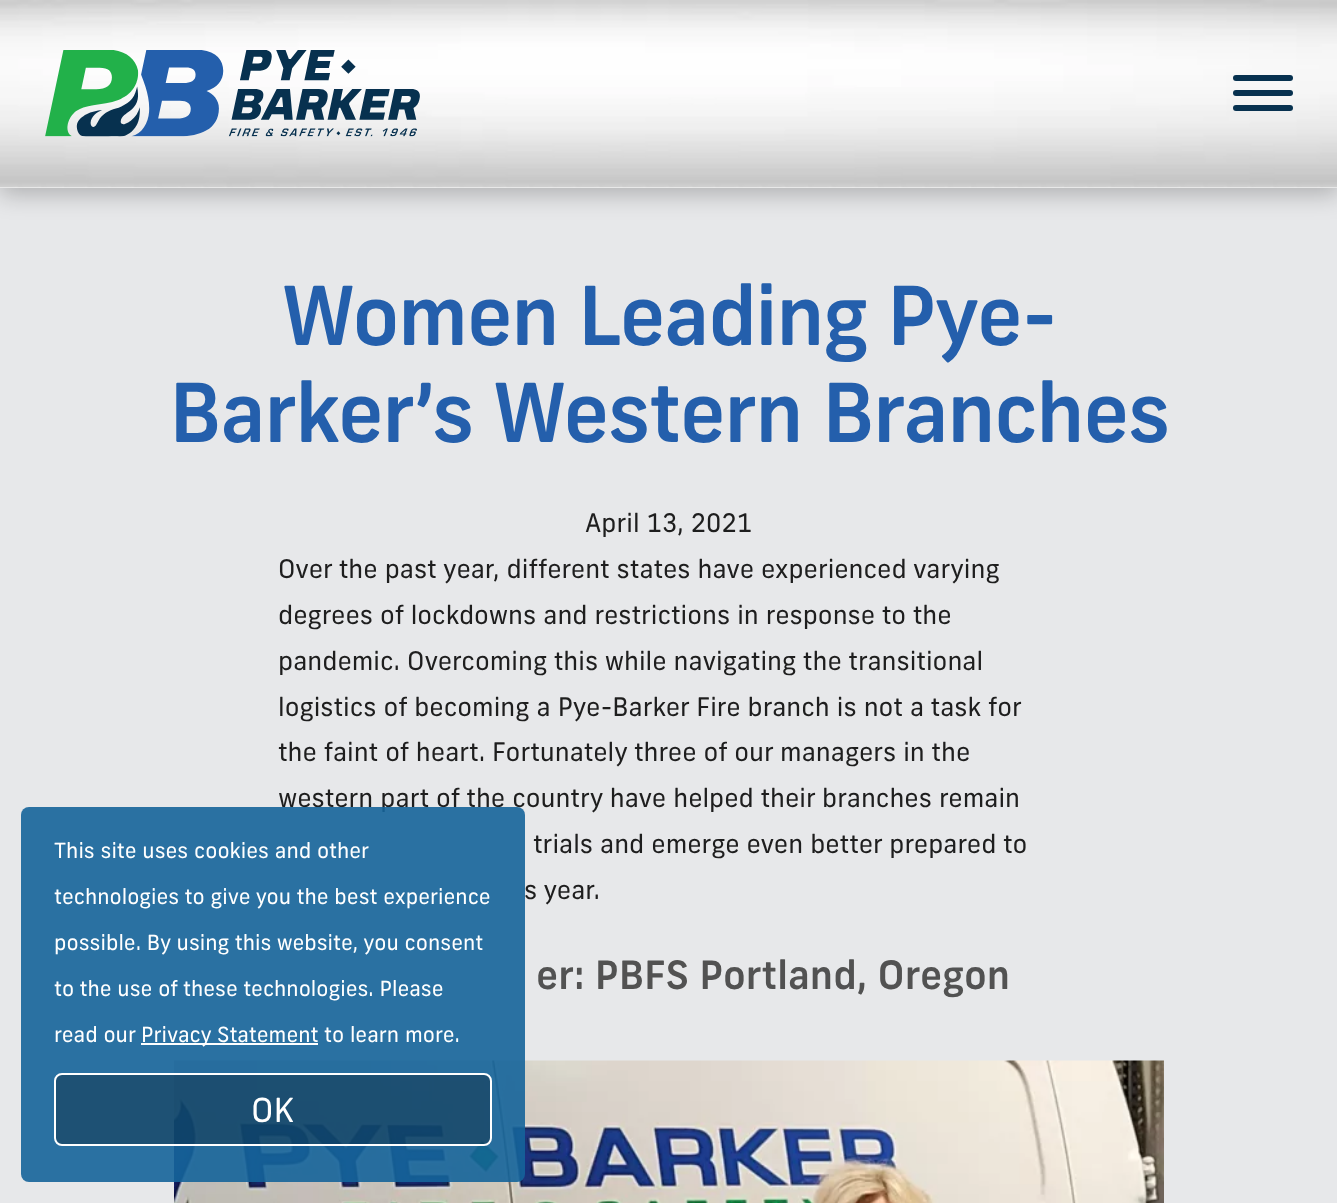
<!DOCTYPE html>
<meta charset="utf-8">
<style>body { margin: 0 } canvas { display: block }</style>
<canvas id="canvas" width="1337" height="1203"></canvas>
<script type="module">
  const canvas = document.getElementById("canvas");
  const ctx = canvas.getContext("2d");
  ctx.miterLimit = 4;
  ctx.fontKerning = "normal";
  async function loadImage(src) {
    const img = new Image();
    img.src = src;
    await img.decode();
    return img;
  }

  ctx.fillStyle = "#e7e8ea";
  ctx.fillRect(0, 0, 1337, 1203);
  ctx.fillStyle = "rgba(0, 0, 0, 0.25)";
  ctx.filter = "blur(12px)";
  ctx.beginPath();
  ctx.rect(-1, 3, 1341, 191);
  ctx.fill();
  ctx.filter = "none";
  ctx.fillStyle = "#ffffff";
  ctx.fillRect(0, 187, 1337, 1);
  ctx.drawImage(await loadImage("img1.png"), 0, 0, 1337, 188);
  ctx.drawImage(await loadImage("img2.png"), 45, 50, 375, 87);
  ctx.fillStyle = "#07314f";
  ctx.beginPath();
  ctx.roundRect(1233, 90, 60, 6, 3);
  ctx.fill();
  ctx.beginPath();
  ctx.roundRect(1233, 75, 60, 6, 3);
  ctx.fill();
  ctx.beginPath();
  ctx.roundRect(1233, 105, 60, 6, 3);
  ctx.fill();
  ctx.letterSpacing = "-1.6px";
  ctx.font = "500 81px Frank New";
  ctx.fillStyle = "#245fac";
  ctx.fillText("Women Leading Pye-", 281, 345);
  ctx.fillText("Barker’s Western Branches", 169, 442);
  ctx.letterSpacing = "0px";
  ctx.font = "25.5px Frank New";
  ctx.fillStyle = "#1e1e1e";
  ctx.fillText("April 13, 2021", 585, 532);
  ctx.fillText("Over the past year, different states have experienced varying", 278, 578);
  ctx.fillText("degrees of lockdowns and restrictions in response to the", 278, 624);
  ctx.fillText("pandemic. Overcoming this while navigating the transitional", 278, 670);
  ctx.fillText("logistics of becoming a Pye-Barker Fire branch is not a task for", 278, 716);
  ctx.fillText("the faint of heart. Fortunately three of our managers in the", 278, 761);
  ctx.fillText("western part of the country have helped their branches remain", 278, 807);
  ctx.fillText("trials and emerge even better prepared to", 533, 853);
  ctx.fillText("s year.", 524, 899);
  ctx.font = "500 39px Frank New";
  ctx.fillStyle = "#525252";
  ctx.fillText("er: PBFS Portland, Oregon", 536, 989);
  ctx.drawImage(await loadImage("img3.png"), 174, 1060, 990, 143);
  ctx.fillStyle = "rgba(21, 100, 154, 0.9)";
  ctx.beginPath();
  ctx.roundRect(21, 807, 504, 375, 8);
  ctx.fill();
  ctx.font = "21px Frank New";
  ctx.fillStyle = "#ffffff";
  ctx.fillText("This site uses cookies and other", 54, 858);
  ctx.fillText("technologies to give you the best experience", 54, 904);
  ctx.fillText("possible. By using this website, you consent", 54, 950);
  ctx.fillText("to the use of these technologies. Please", 54, 996);
  ctx.fillText("read our", 54, 1042);
  ctx.fillRect(141, 1043, 177, 2);
  ctx.fillText("Privacy Statement", 141, 1042);
  ctx.fillText("to learn more.", 324, 1042);
  ctx.fillStyle = "rgba(4, 4, 4, 0.29)";
  ctx.beginPath();
  ctx.roundRect(55, 1074, 436, 71, 7);
  ctx.fill();
  ctx.strokeStyle = "#ffffff";
  ctx.lineWidth = 2;
  ctx.stroke();
  ctx.font = "33px Frank New";
  ctx.fillStyle = "#ffffff";
  ctx.fillText("OK", 251, 1122);
</script>
